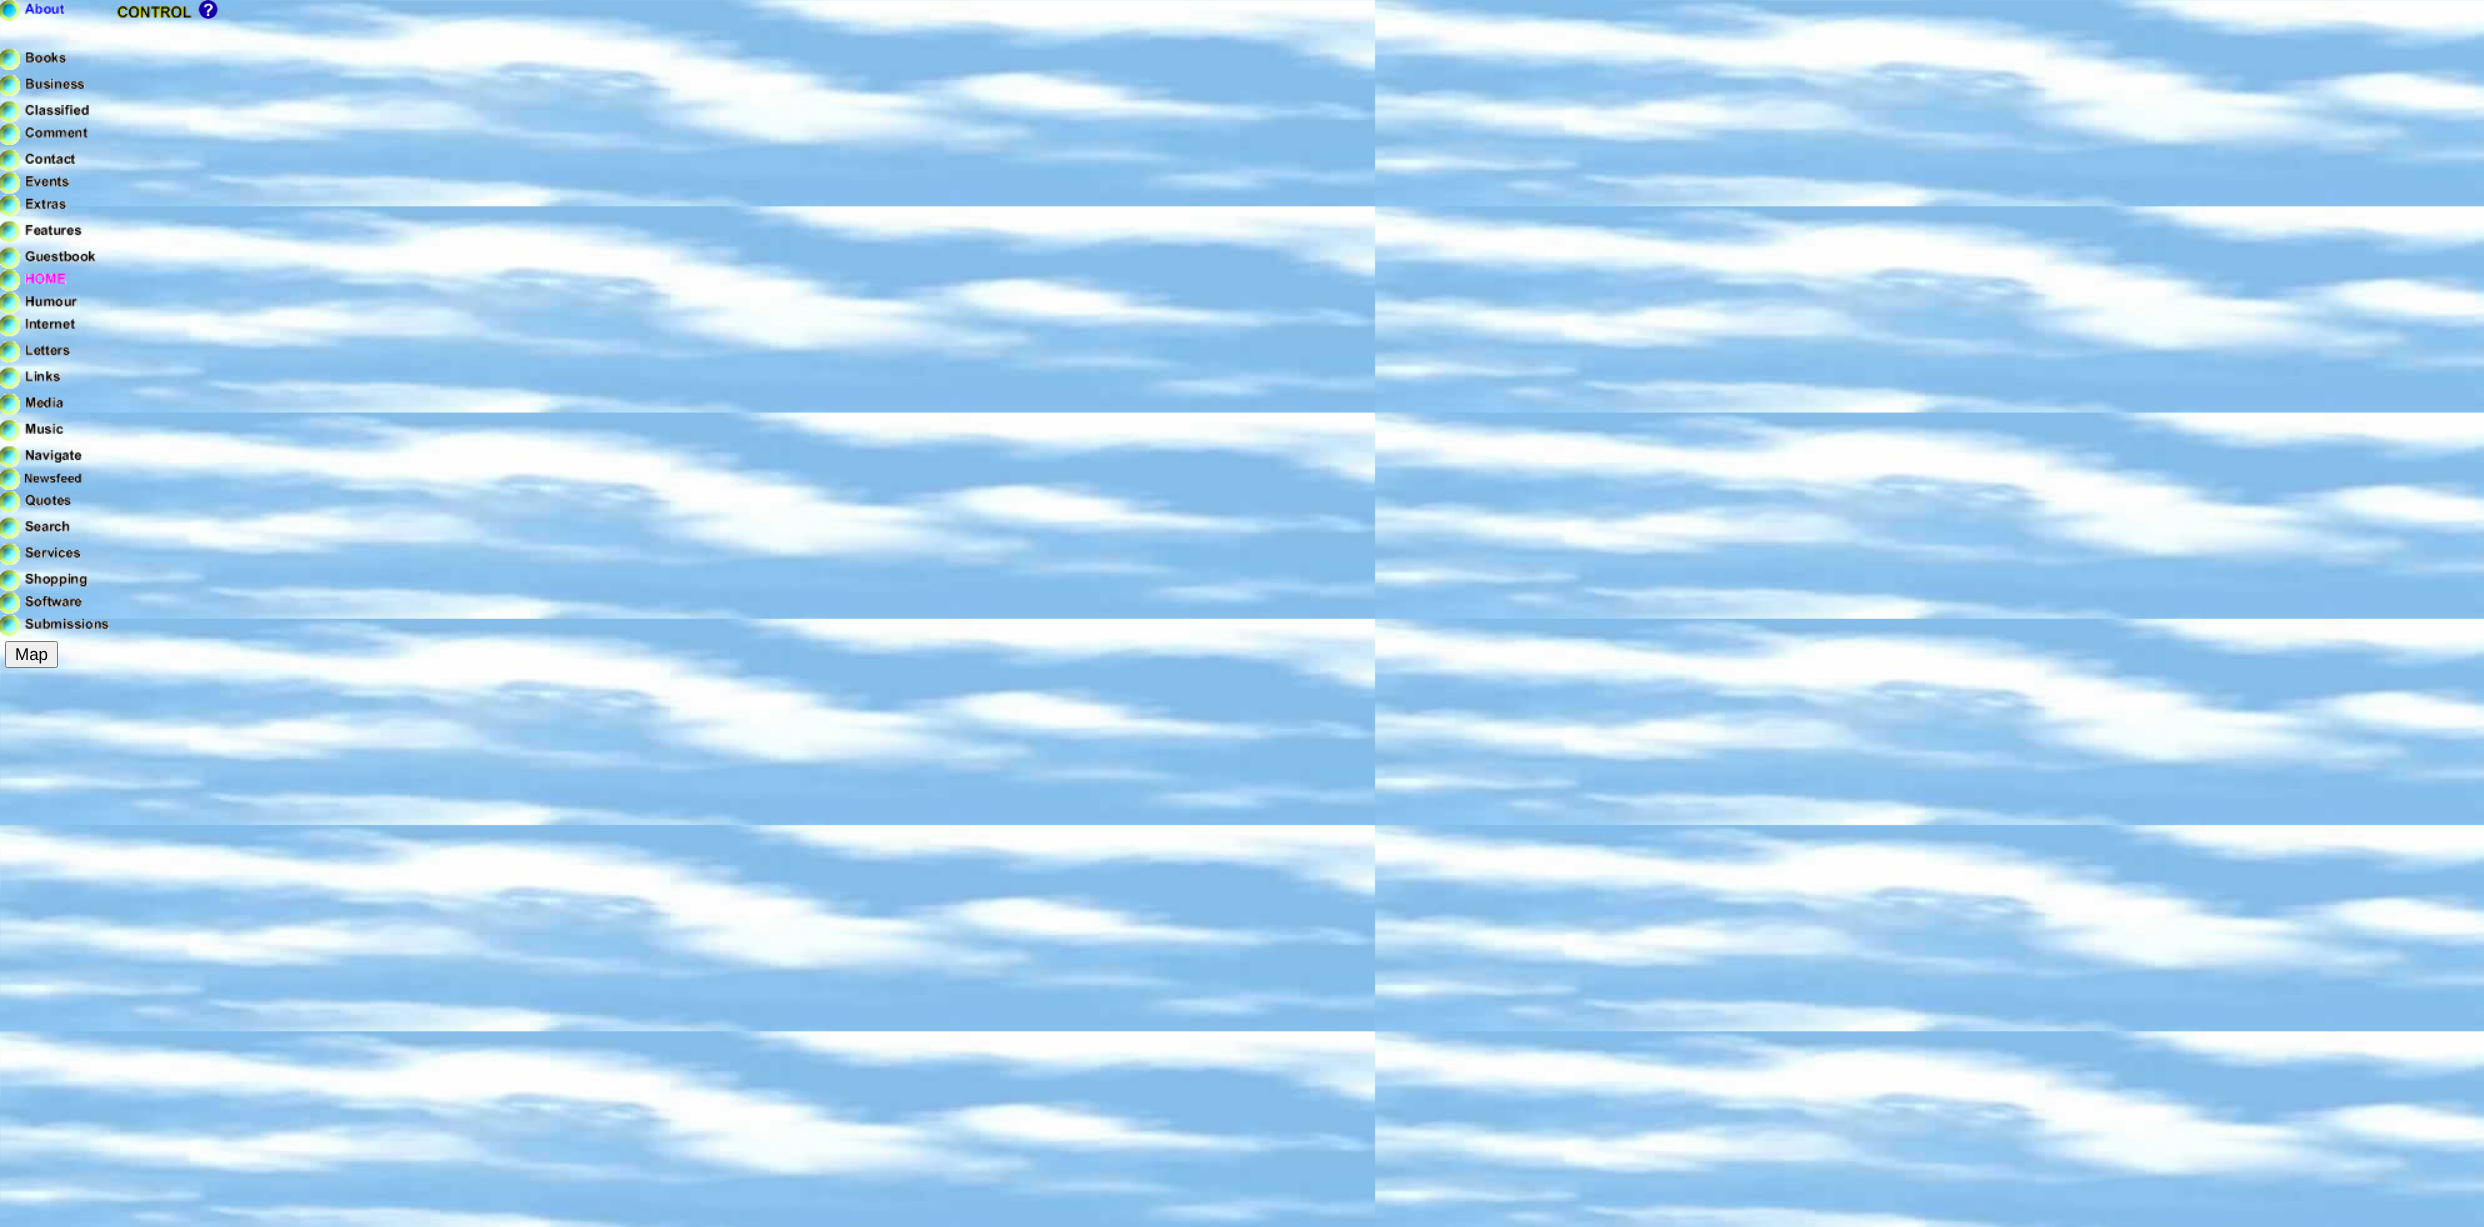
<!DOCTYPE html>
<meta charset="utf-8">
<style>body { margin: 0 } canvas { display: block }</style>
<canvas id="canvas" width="2484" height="1227"></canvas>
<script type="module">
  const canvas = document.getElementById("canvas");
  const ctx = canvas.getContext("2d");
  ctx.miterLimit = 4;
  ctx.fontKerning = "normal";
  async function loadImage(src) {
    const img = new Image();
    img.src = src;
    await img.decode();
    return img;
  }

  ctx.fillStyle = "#ffffff";
  ctx.fillRect(0, 0, 2484, 1227);
  ctx.drawImage(await loadImage("img1.png"), 0, 0, 2484, 1227);
  ctx.drawImage(await loadImage("img2.png"), 117, 6, 75, 12);
  ctx.drawImage(await loadImage("img3.png"), 198, 0, 20, 19);
  ctx.drawImage(await loadImage("img4.png"), 0, 0, 65, 22);
  ctx.drawImage(await loadImage("img5.png"), 0, 48, 67, 22);
  ctx.drawImage(await loadImage("img6.png"), 0, 75, 85, 22);
  ctx.drawImage(await loadImage("img7.png"), 0, 101, 89, 22);
  ctx.drawImage(await loadImage("img8.png"), 0, 123, 88, 22);
  ctx.drawImage(await loadImage("img9.png"), 0, 150, 76, 22);
  ctx.drawImage(await loadImage("img10.png"), 0, 172, 69, 22);
  ctx.drawImage(await loadImage("img11.png"), 0, 195, 67, 22);
  ctx.drawImage(await loadImage("img12.png"), 0, 221, 82, 22);
  ctx.drawImage(await loadImage("img13.png"), 0, 247, 96, 22);
  ctx.drawImage(await loadImage("img14.png"), 0, 270, 67, 22);
  ctx.drawImage(await loadImage("img15.png"), 0, 292, 78, 22);
  ctx.drawImage(await loadImage("img16.png"), 0, 315, 76, 22);
  ctx.drawImage(await loadImage("img17.png"), 0, 341, 70, 22);
  ctx.drawImage(await loadImage("img18.png"), 0, 367, 60, 22);
  ctx.drawImage(await loadImage("img19.png"), 0, 393, 64, 22);
  ctx.drawImage(await loadImage("img20.png"), 0, 420, 64, 22);
  ctx.drawImage(await loadImage("img21.png"), 0, 446, 82, 22);
  ctx.drawImage(await loadImage("img22.png"), 0, 468, 82, 22);
  ctx.drawImage(await loadImage("img23.png"), 0, 491, 72, 22);
  ctx.drawImage(await loadImage("img24.png"), 0, 517, 70, 22);
  ctx.drawImage(await loadImage("img25.png"), 0, 543, 82, 22);
  ctx.drawImage(await loadImage("img26.png"), 0, 570, 88, 22);
  ctx.drawImage(await loadImage("img27.png"), 0, 592, 82, 22);
  ctx.drawImage(await loadImage("img28.png"), 0, 615, 109, 22);
  ctx.fillStyle = "#efefef";
  ctx.beginPath();
  ctx.roundRect(5.5, 641.5, 52, 26, 2);
  ctx.fill();
  ctx.strokeStyle = "#767676";
  ctx.stroke();
  ctx.font = "17px Liberation Sans";
  ctx.fillStyle = "#000000";
  ctx.fillText("Map", 15, 660);
</script>
